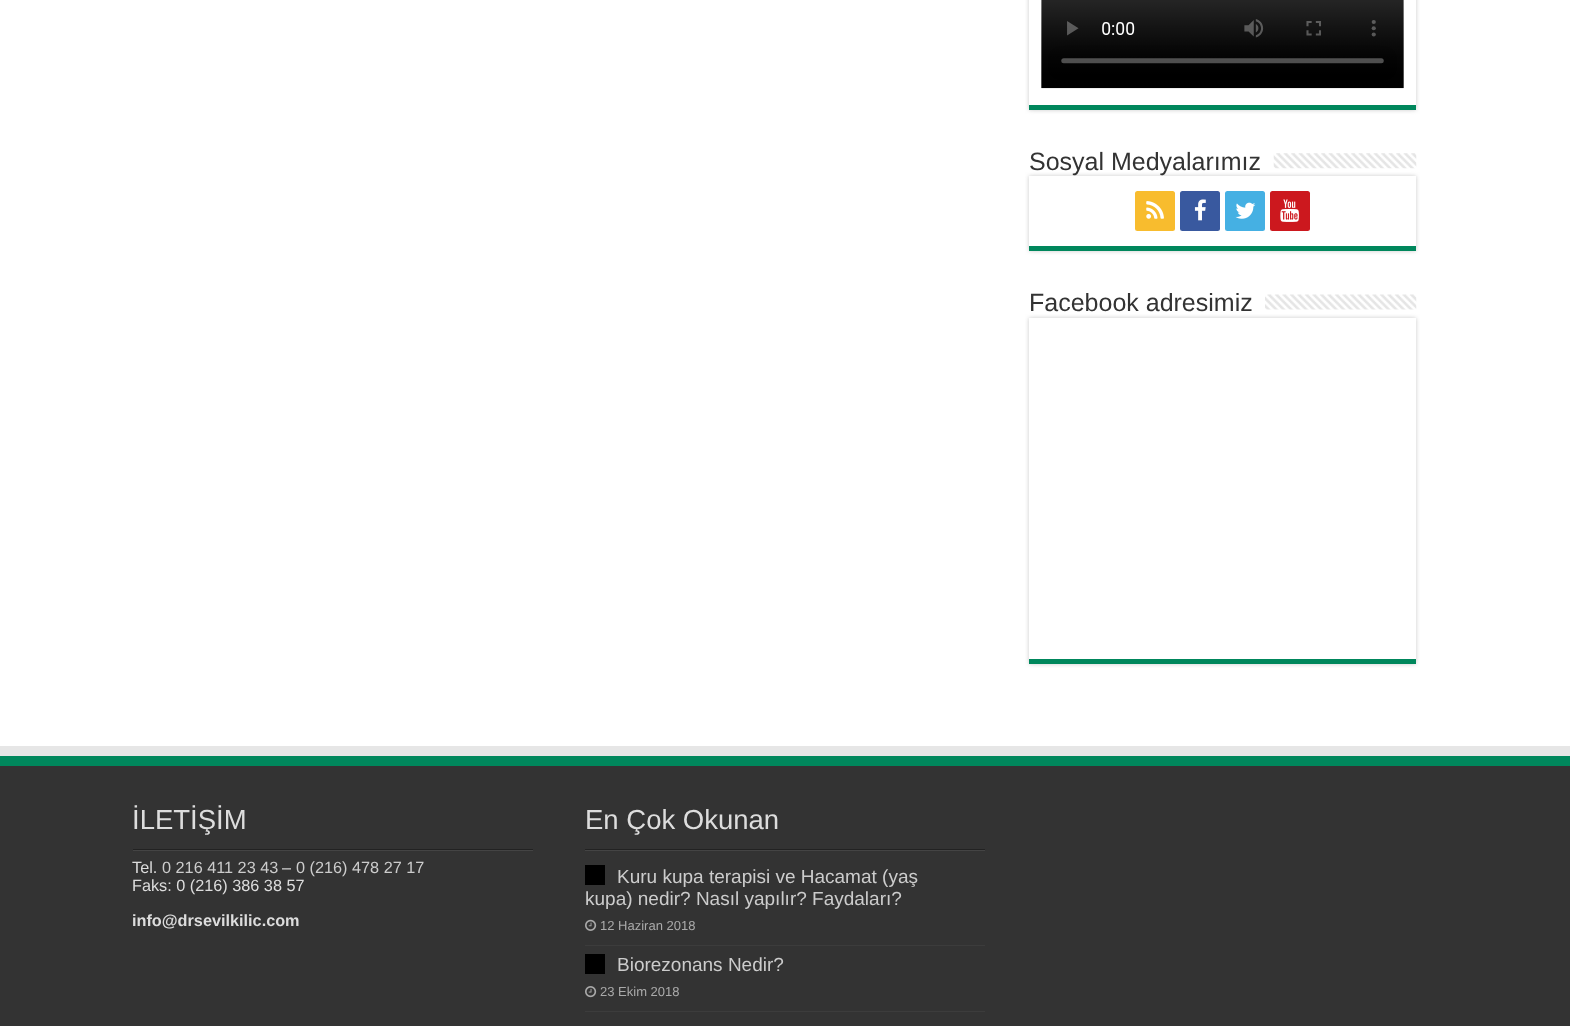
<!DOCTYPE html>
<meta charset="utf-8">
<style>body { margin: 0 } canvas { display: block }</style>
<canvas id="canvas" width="1570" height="1026"></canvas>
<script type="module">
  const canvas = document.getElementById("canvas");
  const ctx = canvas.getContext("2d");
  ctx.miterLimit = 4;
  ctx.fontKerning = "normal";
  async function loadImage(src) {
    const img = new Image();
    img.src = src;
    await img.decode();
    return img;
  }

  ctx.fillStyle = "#ffffff";
  ctx.fillRect(0, 0, 1570, 1026);
  ctx.save();
  ctx.beginPath();
  ctx.moveTo(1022, 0);
  ctx.lineTo(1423, 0);
  ctx.lineTo(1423, 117);
  ctx.lineTo(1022, 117);
  ctx.closePath();
  ctx.moveTo(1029, -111);
  ctx.lineTo(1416, -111);
  ctx.lineTo(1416, 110);
  ctx.lineTo(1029, 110);
  ctx.closePath();
  ctx.clip("evenodd");
  ctx.fillStyle = "#cacaca";
  ctx.filter = "blur(2px)";
  ctx.beginPath();
  ctx.rect(1029, -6, 387, 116);
  ctx.fill();
  ctx.filter = "none";
  ctx.restore();
  ctx.fillStyle = "#00875c";
  ctx.fillRect(1029, 105, 387, 5);
  ctx.drawImage(await loadImage("img1.png"), 1041, 0, 363, 89);
  ctx.fillStyle = "#cacaca";
  ctx.filter = "blur(2px)";
  ctx.beginPath();
  ctx.rect(1029, 176, 387, 75);
  ctx.fill();
  ctx.filter = "none";
  ctx.font = "25px Liberation Sans";
  ctx.fillStyle = "#333333";
  ctx.fillText("Sosyal Medyalarımız", 1029, 170);
  ctx.drawImage(await loadImage("img2.png"), 1273, 153, 144, 16);
  ctx.fillStyle = "#ffffff";
  ctx.fillRect(1029, 176, 387, 70);
  ctx.fillStyle = "#00875c";
  ctx.fillRect(1029, 246, 387, 5);
  ctx.fillStyle = "#f8bc2e";
  ctx.beginPath();
  ctx.roundRect(1135, 191, 40, 40, 2.5);
  ctx.fill();
  ctx.drawImage(await loadImage("img3.png"), 1146, 201, 18, 18);
  ctx.fillStyle = "#39599f";
  ctx.beginPath();
  ctx.roundRect(1180, 191, 40, 40, 2.5);
  ctx.fill();
  ctx.drawImage(await loadImage("img4.png"), 1194, 199, 12, 22);
  ctx.fillStyle = "#45b0e3";
  ctx.beginPath();
  ctx.roundRect(1225, 191, 40, 40, 2.5);
  ctx.fill();
  ctx.drawImage(await loadImage("img5.png"), 1235, 202, 21, 17);
  ctx.fillStyle = "#cc181e";
  ctx.beginPath();
  ctx.roundRect(1270, 191, 40, 40, 2.5);
  ctx.fill();
  ctx.drawImage(await loadImage("img6.png"), 1280, 199, 19, 23);
  ctx.fillStyle = "#cacaca";
  ctx.filter = "blur(2px)";
  ctx.beginPath();
  ctx.rect(1029, 318, 387, 346);
  ctx.fill();
  ctx.filter = "none";
  ctx.fillStyle = "#333333";
  ctx.fillText("Facebook adresimiz", 1029, 311);
  ctx.drawImage(await loadImage("img7.png"), 1265, 294, 152, 16);
  ctx.fillStyle = "#ffffff";
  ctx.fillRect(1029, 318, 387, 341);
  ctx.fillStyle = "#00875c";
  ctx.fillRect(1029, 659, 387, 5);
  ctx.fillStyle = "#e6e6e6";
  ctx.fillRect(0, 746, 1570, 10);
  ctx.fillStyle = "#333333";
  ctx.fillRect(0, 766, 1570, 260);
  ctx.fillStyle = "#00875c";
  ctx.fillRect(0, 756, 1570, 10);
  ctx.fillStyle = "#222222";
  ctx.fillRect(133, 849, 400, 1);
  ctx.font = "27.5px Liberation Sans";
  ctx.fillStyle = "#dddddd";
  ctx.fillText("İLETİŞİM", 132, 829);
  ctx.fillStyle = "#444444";
  ctx.fillRect(133, 850, 400, 1);
  ctx.font = "16.25px Liberation Sans";
  ctx.fillStyle = "#dddddd";
  ctx.fillText("Tel.", 132, 873);
  ctx.fillStyle = "#cccccc";
  ctx.fillText("0 216 411 23 43", 162, 873);
  ctx.fillStyle = "#dddddd";
  ctx.fillText("–", 282, 873);
  ctx.fillStyle = "#cccccc";
  ctx.fillText("0 (216) 478 27 17", 296, 873);
  ctx.fillStyle = "#dddddd";
  ctx.fillText("Faks: 0 (216) 386 38 57", 132, 891);
  ctx.font = "bold 16.25px Liberation Sans";
  ctx.fillText("info@drsevilkilic.com", 132, 926);
  ctx.fillStyle = "#222222";
  ctx.fillRect(585, 849, 400, 1);
  ctx.font = "27.5px Liberation Sans";
  ctx.fillStyle = "#dddddd";
  ctx.fillText("En Çok Okunan", 585, 829);
  ctx.fillStyle = "#444444";
  ctx.fillRect(585, 850, 400, 1);
  ctx.fillStyle = "#3c3c3c";
  ctx.fillRect(585, 945, 400, 1);
  ctx.fillStyle = "#000000";
  ctx.fillRect(585, 865, 20, 20);
  ctx.font = "19px Liberation Sans";
  ctx.fillStyle = "#cccccc";
  ctx.fillText("Kuru kupa terapisi ve Hacamat (yaş", 617, 883);
  ctx.fillText("kupa) nedir? Nasıl yapılır? Faydaları?", 585, 905);
  ctx.drawImage(await loadImage("img8.png"), 585, 919, 12, 12);
  ctx.font = "13px Liberation Sans";
  ctx.fillStyle = "#aaaaaa";
  ctx.fillText("12 Haziran 2018", 600, 930);
  ctx.fillStyle = "#3c3c3c";
  ctx.fillRect(585, 1011, 400, 1);
  ctx.fillStyle = "#000000";
  ctx.fillRect(585, 954, 20, 20);
  ctx.font = "19px Liberation Sans";
  ctx.fillStyle = "#cccccc";
  ctx.fillText("Biorezonans Nedir?", 617, 971);
  ctx.drawImage(await loadImage("img9.png"), 585, 986, 12, 12);
  ctx.font = "13px Liberation Sans";
  ctx.fillStyle = "#aaaaaa";
  ctx.fillText("23 Ekim 2018", 600, 996);
</script>
